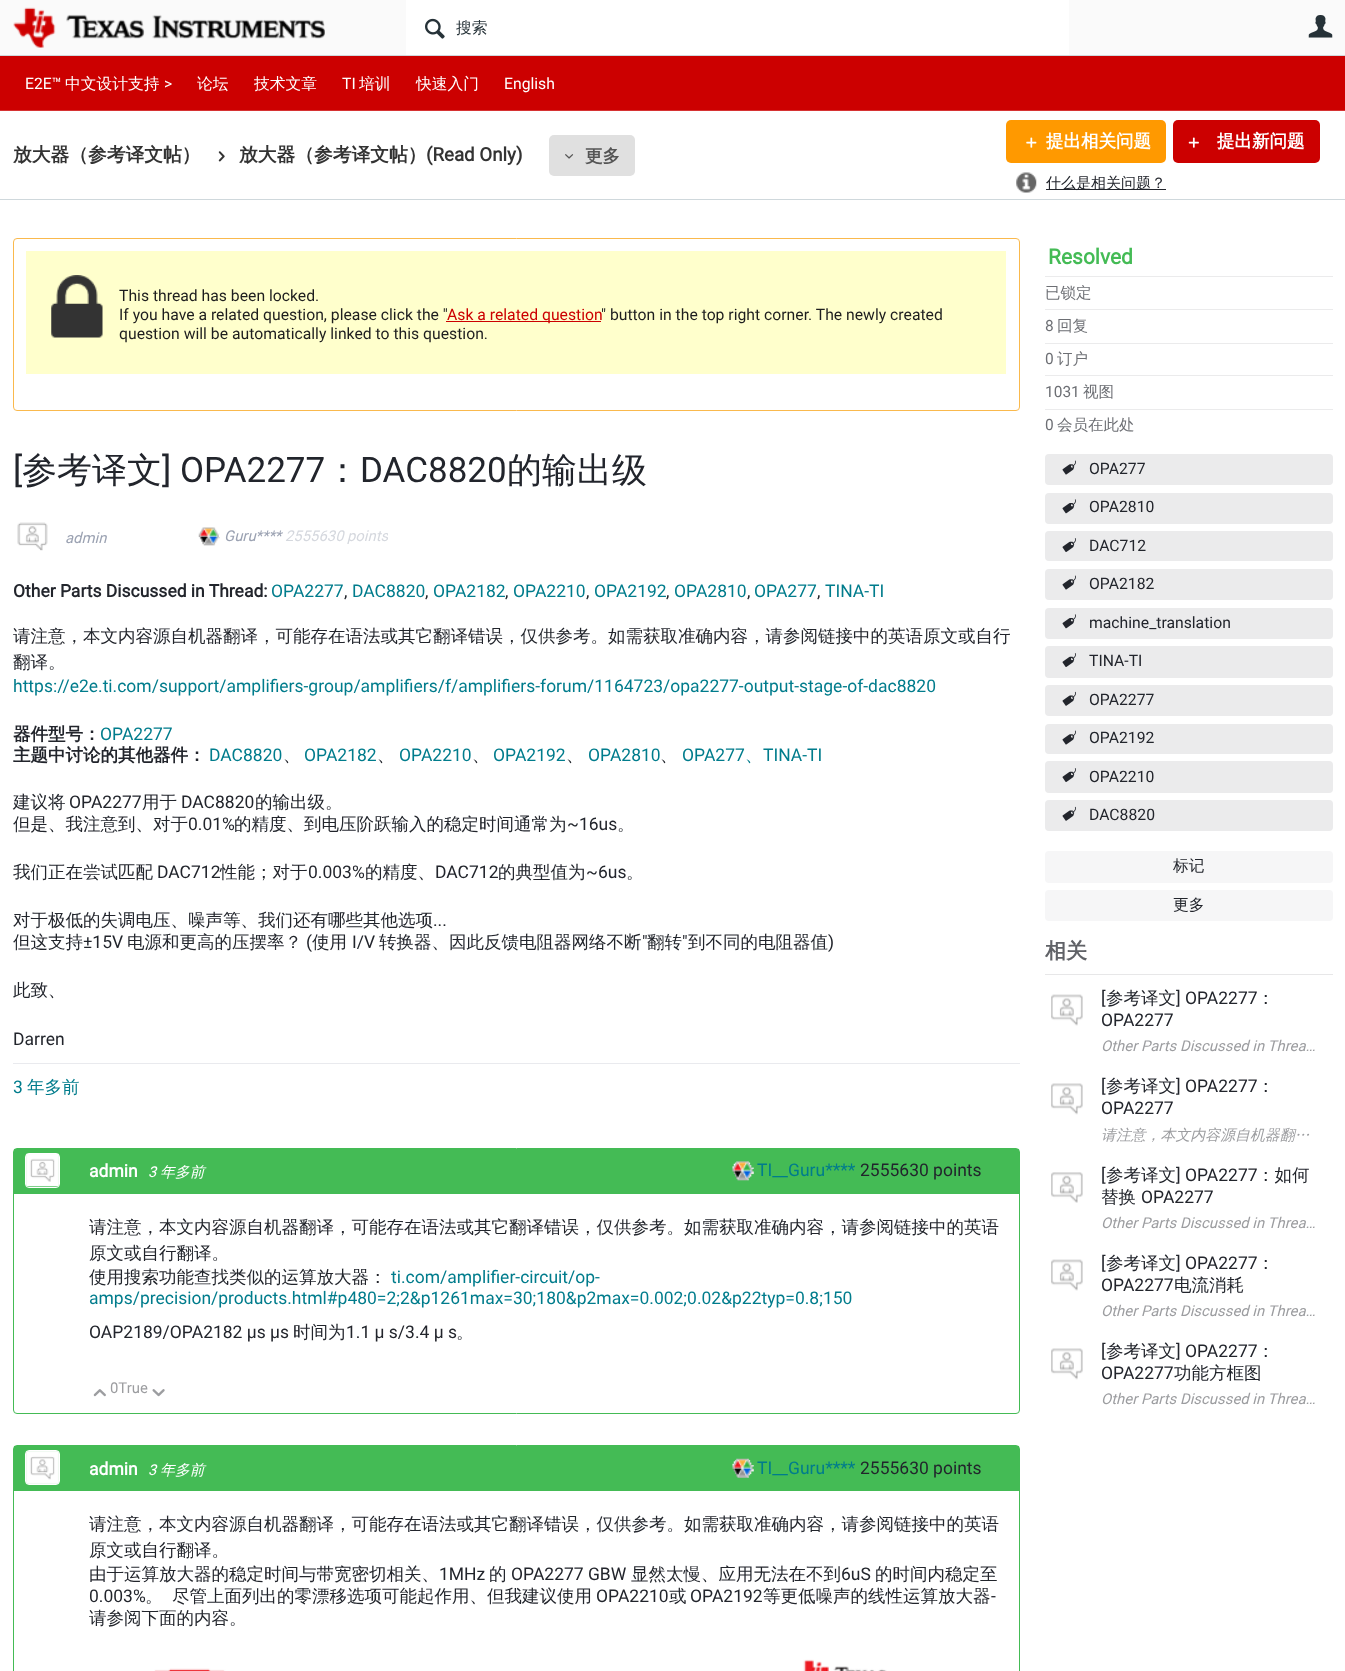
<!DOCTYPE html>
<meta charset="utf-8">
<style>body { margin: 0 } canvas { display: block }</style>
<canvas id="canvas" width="1345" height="1671"></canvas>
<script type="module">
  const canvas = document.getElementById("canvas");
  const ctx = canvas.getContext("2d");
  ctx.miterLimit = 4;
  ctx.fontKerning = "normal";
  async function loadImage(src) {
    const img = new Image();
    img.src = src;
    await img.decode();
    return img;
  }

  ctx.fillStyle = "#ffffff";
  ctx.fillRect(0, 0, 1345, 1671);
  ctx.fillStyle = "#fafafa";
  ctx.fillRect(0, 0, 1345, 55);
  ctx.fillStyle = "#cfd8dc";
  ctx.fillRect(0, 55, 1345, 1);
  ctx.drawImage(await loadImage("img1.png"), 13, 7, 312, 41);
  ctx.fillStyle = "#ffffff";
  ctx.fillRect(406, 0, 663, 55);
  ctx.drawImage(await loadImage("img2.png"), 425, 18, 20, 21);
  ctx.font = "500 15.75px WenQuanYi Zen Hei";
  ctx.fillStyle = "#263238";
  ctx.fillText("搜索", 456, 33);
  ctx.drawImage(await loadImage("img3.png"), 1308, 15, 25, 23);
  ctx.fillStyle = "#cfd8dc";
  ctx.fillRect(0, 199, 1345, 1);
  ctx.fillStyle = "#cc0000";
  ctx.fillRect(0, 56, 1345, 54);
  ctx.fillStyle = "#d63333";
  ctx.fillRect(0, 110, 1345, 1);
  ctx.font = "15.75px Roboto";
  ctx.fillStyle = "#ffffff";
  ctx.fillText("E2E™", 25, 89);
  ctx.font = "500 15.75px WenQuanYi Zen Hei";
  ctx.fillText("中文设计支持", 65, 89);
  ctx.font = "15.75px Roboto";
  ctx.fillText(">", 164, 89);
  ctx.font = "500 15.75px WenQuanYi Zen Hei";
  ctx.fillText("论坛", 197, 89);
  ctx.fillText("技术文章", 254, 89);
  ctx.font = "15.75px Roboto";
  ctx.fillText("TI", 342, 89);
  ctx.font = "500 15.75px WenQuanYi Zen Hei";
  ctx.fillText("培训", 359, 89);
  ctx.fillText("快速入门", 416, 89);
  ctx.font = "15.75px Roboto";
  ctx.fillText("English", 504, 89);
  ctx.font = "bold 18.75px WenQuanYi Zen Hei";
  ctx.fillStyle = "#333333";
  ctx.fillText("放大器（参考译文帖）", 13, 161);
  ctx.drawImage(await loadImage("img4.png"), 218, 151, 7, 11);
  ctx.fillText("放大器（参考译文帖）", 239, 161);
  ctx.font = "bold 18.75px Roboto";
  ctx.fillText("(Read Only)", 426, 161);
  ctx.fillStyle = "#e0e0e0";
  ctx.beginPath();
  ctx.roundRect(549, 135, 86, 41, 5);
  ctx.fill();
  ctx.drawImage(await loadImage("img5.png"), 565, 154, 9, 5);
  ctx.font = "bold 17.5px WenQuanYi Zen Hei";
  ctx.fillStyle = "#555555";
  ctx.fillText("更多", 585, 162);
  ctx.fillStyle = "#ff9900";
  ctx.beginPath();
  ctx.roundRect(1006, 120, 160, 43, 5);
  ctx.fill();
  ctx.drawImage(await loadImage("img6.png"), 1026, 137, 11, 11);
  ctx.fillStyle = "#ffffff";
  ctx.fillText("提出相关问题", 1046, 147);
  ctx.drawImage(await loadImage("img7.png"), 1016, 172, 21, 21);
  ctx.fillStyle = "#22252c";
  ctx.fillRect(1046, 189, 120, 1);
  ctx.font = "500 15px WenQuanYi Zen Hei";
  ctx.fillText("什么是相关问题？", 1046, 188);
  ctx.fillStyle = "#cc0000";
  ctx.beginPath();
  ctx.roundRect(1173, 120, 147, 43, 5);
  ctx.fill();
  ctx.drawImage(await loadImage("img8.png"), 1188, 137, 11, 11);
  ctx.font = "bold 17.5px WenQuanYi Zen Hei";
  ctx.fillStyle = "#ffffff";
  ctx.fillText("提出新问题", 1217, 147);
  ctx.beginPath();
  ctx.roundRect(13.5, 238.5, 1006, 172, 3.5);
  ctx.strokeStyle = "#fab94d";
  ctx.stroke();
  ctx.fillStyle = "#ffffcc";
  ctx.fillRect(26, 251, 980, 123);
  ctx.drawImage(await loadImage("img9.png"), 51, 275, 52, 63);
  ctx.font = "15.75px Roboto";
  ctx.fillStyle = "#1e1e1e";
  ctx.fillText("This thread has been locked.", 119, 301);
  ctx.fillText("If you have a related question, please click the \"", 119, 320);
  ctx.fillStyle = "#cc0000";
  ctx.fillRect(446, 321, 155, 1);
  ctx.fillText("Ask a related question", 447, 320);
  ctx.fillStyle = "#1e1e1e";
  ctx.fillText("\" button in the top right corner. The newly created", 601, 320);
  ctx.fillText("question will be automatically linked to this question.", 119, 339);
  ctx.font = "35px Roboto";
  ctx.fillStyle = "#22252c";
  ctx.fillText("[", 13, 482);
  ctx.font = "500 35px WenQuanYi Zen Hei";
  ctx.fillText("参考译文", 22, 482);
  ctx.font = "35px Roboto";
  ctx.fillText("] OPA2277", 162, 482);
  ctx.font = "500 35px WenQuanYi Zen Hei";
  ctx.fillText("：", 325, 482);
  ctx.font = "35px Roboto";
  ctx.fillText("DAC8820", 360, 482);
  ctx.font = "500 35px WenQuanYi Zen Hei";
  ctx.fillText("的输出级", 507, 482);
  ctx.drawImage(await loadImage("img10.png"), 17, 522, 31, 29);
  ctx.font = "italic 14.9px Roboto";
  ctx.fillStyle = "#9ba2b2";
  ctx.fillText("admin", 65, 543);
  ctx.drawImage(await loadImage("img11.png"), 198, 527, 22, 19);
  ctx.fillText("Guru****", 224, 541);
  ctx.fillStyle = "#d5d8de";
  ctx.fillText("2555630", 285, 541);
  ctx.save();
  ctx.beginPath();
  ctx.rect(13, 516, 375, 40);
  ctx.clip();
  ctx.fillText("points", 347, 541);
  ctx.restore();
  ctx.fillStyle = "#e9eaee";
  ctx.fillRect(13, 1063, 1007, 1);
  ctx.font = "bold 17.5px Roboto";
  ctx.fillStyle = "#22252c";
  ctx.fillText("Other Parts Discussed in Thread:", 13, 597);
  ctx.font = "17.5px Roboto";
  ctx.fillStyle = "#007c8c";
  ctx.fillText("OPA2277", 271, 597);
  ctx.fillText("DAC8820", 352, 597);
  ctx.fillText("OPA2182", 433, 597);
  ctx.fillText("OPA2210", 513, 597);
  ctx.fillText("OPA2192", 594, 597);
  ctx.fillText("OPA2810", 674, 597);
  ctx.fillText("OPA277", 754, 597);
  ctx.fillText("TINA-TI", 825, 597);
  ctx.fillStyle = "#22252c";
  ctx.fillText(",", 344, 597);
  ctx.fillText(",", 425, 597);
  ctx.fillText(",", 505, 597);
  ctx.fillText(",", 586, 597);
  ctx.fillText(",", 666, 597);
  ctx.fillText(",", 747, 597);
  ctx.fillText(",", 817, 597);
  ctx.font = "500 17.5px WenQuanYi Zen Hei";
  ctx.fillText("请注意，本文内容源自机器翻译，可能存在语法或其它翻译错误，仅供参考。如需获取准确内容，请参阅链接中的英语原文或自行", 13, 642);
  ctx.fillText("翻译。", 13, 668);
  ctx.font = "17.5px Roboto";
  ctx.fillStyle = "#007c8c";
  ctx.fillText("https://e2e.ti.com/support/amplifiers-group/amplifiers/f/amplifiers-forum/1164723/opa2277-output-stage-of-dac8820", 13, 692);
  ctx.font = "bold 17.5px WenQuanYi Zen Hei";
  ctx.fillStyle = "#22252c";
  ctx.fillText("器件型号：", 13, 740);
  ctx.font = "17.5px Roboto";
  ctx.fillStyle = "#007c8c";
  ctx.fillText("OPA2277", 100, 740);
  ctx.font = "bold 17.5px WenQuanYi Zen Hei";
  ctx.fillStyle = "#22252c";
  ctx.fillText("主题中讨论的其他器件：", 13, 761);
  ctx.font = "17.5px Roboto";
  ctx.fillStyle = "#007c8c";
  ctx.fillText("DAC8820", 209, 761);
  ctx.fillText("OPA2182", 304, 761);
  ctx.fillText("OPA2210", 399, 761);
  ctx.fillText("OPA2192", 493, 761);
  ctx.fillText("OPA2810", 588, 761);
  ctx.fillText("OPA277", 682, 761);
  ctx.fillText("TINA-TI", 763, 761);
  ctx.font = "500 17.5px WenQuanYi Zen Hei";
  ctx.fillStyle = "#22252c";
  ctx.fillText("、", 283, 761);
  ctx.fillText("、", 377, 761);
  ctx.fillText("、", 472, 761);
  ctx.fillText("、", 566, 761);
  ctx.fillText("、", 660, 761);
  ctx.fillStyle = "#007c8c";
  ctx.fillText("、", 745, 761);
  ctx.fillStyle = "#22252c";
  ctx.fillText("建议将", 13, 808);
  ctx.font = "17.5px Roboto";
  ctx.fillText("OPA2277", 69, 808);
  ctx.font = "500 17.5px WenQuanYi Zen Hei";
  ctx.fillText("用于", 142, 808);
  ctx.font = "17.5px Roboto";
  ctx.fillText("DAC8820", 181, 808);
  ctx.font = "500 17.5px WenQuanYi Zen Hei";
  ctx.fillText("的输出级。", 255, 808);
  ctx.fillText("但是、我注意到、对于", 13, 830);
  ctx.font = "17.5px Roboto";
  ctx.fillText("0.01%", 188, 830);
  ctx.font = "500 17.5px WenQuanYi Zen Hei";
  ctx.fillText("的精度、到电压阶跃输入的稳定时间通常为", 234, 830);
  ctx.font = "17.5px Roboto";
  ctx.fillText("~16us", 567, 830);
  ctx.font = "500 17.5px WenQuanYi Zen Hei";
  ctx.fillText("。", 617, 830);
  ctx.fillText("我们正在尝试匹配", 13, 878);
  ctx.font = "17.5px Roboto";
  ctx.fillText("DAC712", 157, 878);
  ctx.font = "500 17.5px WenQuanYi Zen Hei";
  ctx.fillText("性能；对于", 220, 878);
  ctx.font = "17.5px Roboto";
  ctx.fillText("0.003%", 308, 878);
  ctx.font = "500 17.5px WenQuanYi Zen Hei";
  ctx.fillText("的精度、", 365, 878);
  ctx.font = "17.5px Roboto";
  ctx.fillText("DAC712", 435, 878);
  ctx.font = "500 17.5px WenQuanYi Zen Hei";
  ctx.fillText("的典型值为", 498, 878);
  ctx.font = "17.5px Roboto";
  ctx.fillText("~6us", 586, 878);
  ctx.font = "500 17.5px WenQuanYi Zen Hei";
  ctx.fillText("。", 626, 878);
  ctx.fillText("对于极低的失调电压、噪声等、我们还有哪些其他选项", 13, 926);
  ctx.font = "17.5px Roboto";
  ctx.fillText("...", 433, 926);
  ctx.font = "500 17.5px WenQuanYi Zen Hei";
  ctx.fillText("但这支持", 13, 948);
  ctx.font = "17.5px Roboto";
  ctx.fillText("±15V", 83, 948);
  ctx.font = "500 17.5px WenQuanYi Zen Hei";
  ctx.fillText("电源和更高的压摆率？", 127, 948);
  ctx.font = "17.5px Roboto";
  ctx.fillText("(", 306, 948);
  ctx.font = "500 17.5px WenQuanYi Zen Hei";
  ctx.fillText("使用", 312, 948);
  ctx.font = "17.5px Roboto";
  ctx.fillText("I/V", 352, 948);
  ctx.font = "500 17.5px WenQuanYi Zen Hei";
  ctx.fillText("转换器、因此反馈电阻器网络不断", 379, 948);
  ctx.font = "17.5px Roboto";
  ctx.fillText("\"", 642, 948);
  ctx.font = "500 17.5px WenQuanYi Zen Hei";
  ctx.fillText("翻转", 647, 948);
  ctx.font = "17.5px Roboto";
  ctx.fillText("\"", 682, 948);
  ctx.font = "500 17.5px WenQuanYi Zen Hei";
  ctx.fillText("到不同的电阻器值", 688, 948);
  ctx.font = "17.5px Roboto";
  ctx.fillText(")", 828, 948);
  ctx.font = "500 17.5px WenQuanYi Zen Hei";
  ctx.fillText("此致、", 13, 996);
  ctx.font = "17.5px Roboto";
  ctx.fillText("Darren", 13, 1045);
  ctx.fillStyle = "#007c8c";
  ctx.fillText("3", 13, 1093);
  ctx.font = "500 17.5px WenQuanYi Zen Hei";
  ctx.fillText("年多前", 27, 1093);
  ctx.beginPath();
  ctx.roundRect(13.5, 1148.5, 1006, 265, 3.5);
  ctx.strokeStyle = "#44bb55";
  ctx.stroke();
  ctx.fillStyle = "#44bb55";
  ctx.fillRect(14, 1149, 1005, 45);
  ctx.drawImage(await loadImage("img12.png"), 26, 1153, 33, 34);
  ctx.beginPath();
  ctx.roundRect(25.5, 1153.5, 34, 34, 3.5);
  ctx.strokeStyle = "#ffffff";
  ctx.stroke();
  ctx.drawImage(await loadImage("img13.png"), 26, 1155, 33, 32);
  ctx.font = "bold 17.5px Roboto";
  ctx.fillStyle = "#ffffff";
  ctx.fillText("admin", 89, 1177);
  ctx.font = "italic 14.9px Roboto";
  ctx.fillText("3", 148, 1177);
  ctx.font = "italic 500 14.9px WenQuanYi Zen Hei";
  ctx.fillText("年多前", 160, 1177);
  ctx.drawImage(await loadImage("img14.png"), 732, 1161, 22, 20);
  ctx.font = "17.5px Roboto";
  ctx.fillStyle = "#007c8c";
  ctx.fillText("TI__Guru****", 757, 1176);
  ctx.fillStyle = "#22252c";
  ctx.fillText("2555630 points", 860, 1176);
  ctx.font = "500 17.5px WenQuanYi Zen Hei";
  ctx.fillText("请注意，本文内容源自机器翻译，可能存在语法或其它翻译错误，仅供参考。如需获取准确内容，请参阅链接中的英语", 89, 1233);
  ctx.fillText("原文或自行翻译。", 89, 1259);
  ctx.fillText("使用搜索功能查找类似的运算放大器：", 89, 1283);
  ctx.font = "17.5px Roboto";
  ctx.fillStyle = "#007c8c";
  ctx.fillText("ti.com/amplifier-circuit/op-", 391, 1283);
  ctx.fillText("amps/precision/products.html#p480=2;2&p1261max=30;180&p2max=0.002;0.02&p22typ=0.8;150", 89, 1304);
  ctx.fillStyle = "#22252c";
  ctx.fillText("OAP2189/OPA2182 µs µs", 89, 1338);
  ctx.font = "500 17.5px WenQuanYi Zen Hei";
  ctx.fillText("时间为", 293, 1338);
  ctx.font = "17.5px Roboto";
  ctx.fillText("1.1 μ s/3.4 μ s", 346, 1338);
  ctx.font = "500 17.5px WenQuanYi Zen Hei";
  ctx.fillText("。", 456, 1338);
  ctx.drawImage(await loadImage("img15.png"), 93, 1389, 13, 8);
  ctx.font = "14.9px Roboto";
  ctx.fillStyle = "#9c9da0";
  ctx.fillText("0True", 110, 1393);
  ctx.drawImage(await loadImage("img16.png"), 152, 1389, 13, 8);
  ctx.beginPath();
  ctx.roundRect(13.5, 1445.5, 1006, 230, 3.5);
  ctx.strokeStyle = "#44bb55";
  ctx.stroke();
  ctx.fillStyle = "#44bb55";
  ctx.fillRect(14, 1446, 1005, 45);
  ctx.drawImage(await loadImage("img17.png"), 26, 1451, 33, 33);
  ctx.beginPath();
  ctx.roundRect(25.5, 1450.5, 34, 34, 3.5);
  ctx.strokeStyle = "#ffffff";
  ctx.stroke();
  ctx.drawImage(await loadImage("img18.png"), 26, 1451, 33, 33);
  ctx.font = "bold 17.5px Roboto";
  ctx.fillStyle = "#ffffff";
  ctx.fillText("admin", 89, 1475);
  ctx.font = "italic 14.9px Roboto";
  ctx.fillText("3", 148, 1475);
  ctx.font = "italic 500 14.9px WenQuanYi Zen Hei";
  ctx.fillText("年多前", 160, 1475);
  ctx.drawImage(await loadImage("img19.png"), 732, 1458, 22, 20);
  ctx.font = "17.5px Roboto";
  ctx.fillStyle = "#007c8c";
  ctx.fillText("TI__Guru****", 757, 1474);
  ctx.fillStyle = "#22252c";
  ctx.fillText("2555630 points", 860, 1474);
  ctx.font = "500 17.5px WenQuanYi Zen Hei";
  ctx.fillText("请注意，本文内容源自机器翻译，可能存在语法或其它翻译错误，仅供参考。如需获取准确内容，请参阅链接中的英语", 89, 1530);
  ctx.fillText("原文或自行翻译。", 89, 1556);
  ctx.fillText("由于运算放大器的稳定时间与带宽密切相关、", 89, 1580);
  ctx.font = "17.5px Roboto";
  ctx.fillText("1MHz", 439, 1580);
  ctx.font = "500 17.5px WenQuanYi Zen Hei";
  ctx.fillText("的", 489, 1580);
  ctx.font = "17.5px Roboto";
  ctx.fillText("OPA2277 GBW", 511, 1580);
  ctx.font = "500 17.5px WenQuanYi Zen Hei";
  ctx.fillText("显然太慢、应用无法在不到", 631, 1580);
  ctx.font = "17.5px Roboto";
  ctx.fillText("6uS", 841, 1580);
  ctx.font = "500 17.5px WenQuanYi Zen Hei";
  ctx.fillText("的时间内稳定至", 875, 1580);
  ctx.font = "17.5px Roboto";
  ctx.fillText("0.003%", 89, 1602);
  ctx.font = "500 17.5px WenQuanYi Zen Hei";
  ctx.fillText("尽管上面列出的零漂移选项可能起作用、但我建议使用", 172, 1602);
  ctx.font = "17.5px Roboto";
  ctx.fillText("OPA2210", 596, 1602);
  ctx.font = "500 17.5px WenQuanYi Zen Hei";
  ctx.fillText("或", 669, 1602);
  ctx.font = "17.5px Roboto";
  ctx.fillText("OPA2192", 690, 1602);
  ctx.font = "500 17.5px WenQuanYi Zen Hei";
  ctx.fillText("等更低噪声的线性运算放大器", 763, 1602);
  ctx.font = "17.5px Roboto";
  ctx.fillText("-", 991, 1602);
  ctx.font = "500 17.5px WenQuanYi Zen Hei";
  ctx.fillText("。", 145, 1602);
  ctx.fillText("请参阅下面的内容。", 89, 1624);
  ctx.drawImage(await loadImage("img20.png"), 154, 1659, 733, 12);
  ctx.fillStyle = "#ebebec";
  ctx.fillRect(1045, 276, 288, 1);
  ctx.font = "bold 21px Roboto";
  ctx.fillStyle = "#44bb55";
  ctx.fillText("Resolved", 1048, 264);
  ctx.fillStyle = "#ebebec";
  ctx.fillRect(1045, 309, 288, 1);
  ctx.font = "500 15.5px WenQuanYi Zen Hei";
  ctx.fillStyle = "#6d6f74";
  ctx.fillText("已锁定", 1045, 298);
  ctx.fillStyle = "#ebebec";
  ctx.fillRect(1045, 343, 288, 1);
  ctx.font = "15.5px Roboto";
  ctx.fillStyle = "#6d6f74";
  ctx.fillText("8", 1045, 331);
  ctx.font = "500 15.5px WenQuanYi Zen Hei";
  ctx.fillText("回复", 1057, 331);
  ctx.fillStyle = "#ebebec";
  ctx.fillRect(1045, 375, 288, 1);
  ctx.font = "15.5px Roboto";
  ctx.fillStyle = "#6d6f74";
  ctx.fillText("0", 1045, 364);
  ctx.font = "500 15.5px WenQuanYi Zen Hei";
  ctx.fillText("订户", 1057, 364);
  ctx.fillStyle = "#ebebec";
  ctx.fillRect(1045, 409, 288, 1);
  ctx.font = "15.5px Roboto";
  ctx.fillStyle = "#6d6f74";
  ctx.fillText("1031", 1045, 397);
  ctx.font = "500 15.5px WenQuanYi Zen Hei";
  ctx.fillText("视图", 1083, 397);
  ctx.font = "15.5px Roboto";
  ctx.fillText("0", 1045, 430);
  ctx.font = "500 15.5px WenQuanYi Zen Hei";
  ctx.fillText("会员在此处", 1057, 430);
  ctx.fillStyle = "#ebebec";
  ctx.beginPath();
  ctx.roundRect(1045, 454, 288, 31, 4);
  ctx.fill();
  ctx.drawImage(await loadImage("img21.png"), 1062, 460, 14, 15);
  ctx.font = "15.75px Roboto";
  ctx.fillStyle = "#22252c";
  ctx.fillText("OPA277", 1089, 474);
  ctx.fillStyle = "#ebebec";
  ctx.beginPath();
  ctx.roundRect(1045, 493, 288, 31, 4);
  ctx.fill();
  ctx.drawImage(await loadImage("img22.png"), 1062, 499, 14, 15);
  ctx.fillStyle = "#22252c";
  ctx.fillText("OPA2810", 1089, 512);
  ctx.fillStyle = "#ebebec";
  ctx.beginPath();
  ctx.roundRect(1045, 531, 288, 30, 4);
  ctx.fill();
  ctx.drawImage(await loadImage("img23.png"), 1062, 538, 14, 14);
  ctx.fillStyle = "#22252c";
  ctx.fillText("DAC712", 1089, 551);
  ctx.fillStyle = "#ebebec";
  ctx.beginPath();
  ctx.roundRect(1045, 569, 288, 31, 4);
  ctx.fill();
  ctx.drawImage(await loadImage("img21.png"), 1062, 575, 14, 15);
  ctx.fillStyle = "#22252c";
  ctx.fillText("OPA2182", 1089, 589);
  ctx.fillStyle = "#ebebec";
  ctx.beginPath();
  ctx.roundRect(1045, 608, 288, 31, 4);
  ctx.fill();
  ctx.drawImage(await loadImage("img22.png"), 1062, 614, 14, 15);
  ctx.fillStyle = "#22252c";
  ctx.fillText("machine_translation", 1089, 628);
  ctx.fillStyle = "#ebebec";
  ctx.beginPath();
  ctx.roundRect(1045, 646, 288, 32, 4);
  ctx.fill();
  ctx.drawImage(await loadImage("img23.png"), 1062, 653, 14, 14);
  ctx.fillStyle = "#22252c";
  ctx.fillText("TINA-TI", 1089, 666);
  ctx.fillStyle = "#ebebec";
  ctx.beginPath();
  ctx.roundRect(1045, 685, 288, 31, 4);
  ctx.fill();
  ctx.drawImage(await loadImage("img24.png"), 1062, 691, 14, 15);
  ctx.fillStyle = "#22252c";
  ctx.fillText("OPA2277", 1089, 705);
  ctx.fillStyle = "#ebebec";
  ctx.beginPath();
  ctx.roundRect(1045, 724, 288, 30, 4);
  ctx.fill();
  ctx.drawImage(await loadImage("img21.png"), 1062, 730, 14, 15);
  ctx.fillStyle = "#22252c";
  ctx.fillText("OPA2192", 1089, 743);
  ctx.fillStyle = "#ebebec";
  ctx.beginPath();
  ctx.roundRect(1045, 761, 288, 32, 4);
  ctx.fill();
  ctx.drawImage(await loadImage("img23.png"), 1062, 768, 14, 14);
  ctx.fillStyle = "#22252c";
  ctx.fillText("OPA2210", 1089, 782);
  ctx.fillStyle = "#ebebec";
  ctx.beginPath();
  ctx.roundRect(1045, 800, 288, 31, 4);
  ctx.fill();
  ctx.drawImage(await loadImage("img24.png"), 1062, 806, 14, 15);
  ctx.fillStyle = "#22252c";
  ctx.fillText("DAC8820", 1089, 820);
  ctx.fillStyle = "#f6f6f7";
  ctx.beginPath();
  ctx.roundRect(1045, 851, 288, 32, 4);
  ctx.fill();
  ctx.font = "500 15.75px WenQuanYi Zen Hei";
  ctx.fillStyle = "#22252c";
  ctx.fillText("标记", 1173, 871);
  ctx.fillStyle = "#f6f6f7";
  ctx.beginPath();
  ctx.roundRect(1045, 890, 288, 31, 4);
  ctx.fill();
  ctx.fillStyle = "#22252c";
  ctx.fillText("更多", 1173, 910);
  ctx.fillStyle = "#e7e7e8";
  ctx.fillRect(1045, 974, 288, 1);
  ctx.font = "bold 21px WenQuanYi Zen Hei";
  ctx.fillStyle = "#606267";
  ctx.fillText("相关", 1045, 958);
  ctx.font = "17.5px Roboto";
  ctx.fillStyle = "#22252c";
  ctx.fillText("[", 1101, 1004);
  ctx.font = "500 17.5px WenQuanYi Zen Hei";
  ctx.fillText("参考译文", 1106, 1004);
  ctx.font = "17.5px Roboto";
  ctx.fillText("] OPA2277", 1176, 1004);
  ctx.font = "500 17.5px WenQuanYi Zen Hei";
  ctx.fillText("：", 1257, 1004);
  ctx.font = "17.5px Roboto";
  ctx.fillText("OPA2277", 1101, 1026);
  ctx.drawImage(await loadImage("img25.png"), 1051, 994, 32, 32);
  ctx.font = "italic 14.9px Roboto";
  ctx.fillStyle = "#9c9da0";
  ctx.fillText("Other Parts Discussed in Threa…", 1101, 1051);
  ctx.font = "17.5px Roboto";
  ctx.fillStyle = "#22252c";
  ctx.fillText("[", 1101, 1092);
  ctx.font = "500 17.5px WenQuanYi Zen Hei";
  ctx.fillText("参考译文", 1106, 1092);
  ctx.font = "17.5px Roboto";
  ctx.fillText("] OPA2277", 1176, 1092);
  ctx.font = "500 17.5px WenQuanYi Zen Hei";
  ctx.fillText("：", 1257, 1092);
  ctx.font = "17.5px Roboto";
  ctx.fillText("OPA2277", 1101, 1114);
  ctx.drawImage(await loadImage("img26.png"), 1051, 1083, 32, 32);
  ctx.font = "italic 500 14.9px WenQuanYi Zen Hei";
  ctx.fillStyle = "#9c9da0";
  ctx.fillText("请注意，本文内容源自机器翻…", 1101, 1140);
  ctx.font = "17.5px Roboto";
  ctx.fillStyle = "#22252c";
  ctx.fillText("[", 1101, 1181);
  ctx.font = "500 17.5px WenQuanYi Zen Hei";
  ctx.fillText("参考译文", 1106, 1181);
  ctx.font = "17.5px Roboto";
  ctx.fillText("] OPA2277", 1176, 1181);
  ctx.font = "500 17.5px WenQuanYi Zen Hei";
  ctx.fillText("：如何", 1257, 1181);
  ctx.fillText("替换", 1101, 1203);
  ctx.font = "17.5px Roboto";
  ctx.fillText("OPA2277", 1141, 1203);
  ctx.drawImage(await loadImage("img27.png"), 1051, 1172, 32, 31);
  ctx.font = "italic 14.9px Roboto";
  ctx.fillStyle = "#9c9da0";
  ctx.fillText("Other Parts Discussed in Threa…", 1101, 1228);
  ctx.font = "17.5px Roboto";
  ctx.fillStyle = "#22252c";
  ctx.fillText("[", 1101, 1269);
  ctx.font = "500 17.5px WenQuanYi Zen Hei";
  ctx.fillText("参考译文", 1106, 1269);
  ctx.font = "17.5px Roboto";
  ctx.fillText("] OPA2277", 1176, 1269);
  ctx.font = "500 17.5px WenQuanYi Zen Hei";
  ctx.fillText("：", 1257, 1269);
  ctx.font = "17.5px Roboto";
  ctx.fillText("OPA2277", 1101, 1291);
  ctx.font = "500 17.5px WenQuanYi Zen Hei";
  ctx.fillText("电流消耗", 1174, 1291);
  ctx.drawImage(await loadImage("img25.png"), 1051, 1259, 32, 32);
  ctx.font = "italic 14.9px Roboto";
  ctx.fillStyle = "#9c9da0";
  ctx.fillText("Other Parts Discussed in Threa…", 1101, 1316);
  ctx.font = "17.5px Roboto";
  ctx.fillStyle = "#22252c";
  ctx.fillText("[", 1101, 1357);
  ctx.font = "500 17.5px WenQuanYi Zen Hei";
  ctx.fillText("参考译文", 1106, 1357);
  ctx.font = "17.5px Roboto";
  ctx.fillText("] OPA2277", 1176, 1357);
  ctx.font = "500 17.5px WenQuanYi Zen Hei";
  ctx.fillText("：", 1257, 1357);
  ctx.font = "17.5px Roboto";
  ctx.fillText("OPA2277", 1101, 1379);
  ctx.font = "500 17.5px WenQuanYi Zen Hei";
  ctx.fillText("功能方框图", 1174, 1379);
  ctx.drawImage(await loadImage("img26.png"), 1051, 1348, 32, 32);
  ctx.font = "italic 14.9px Roboto";
  ctx.fillStyle = "#9c9da0";
  ctx.fillText("Other Parts Discussed in Threa…", 1101, 1404);
</script>
